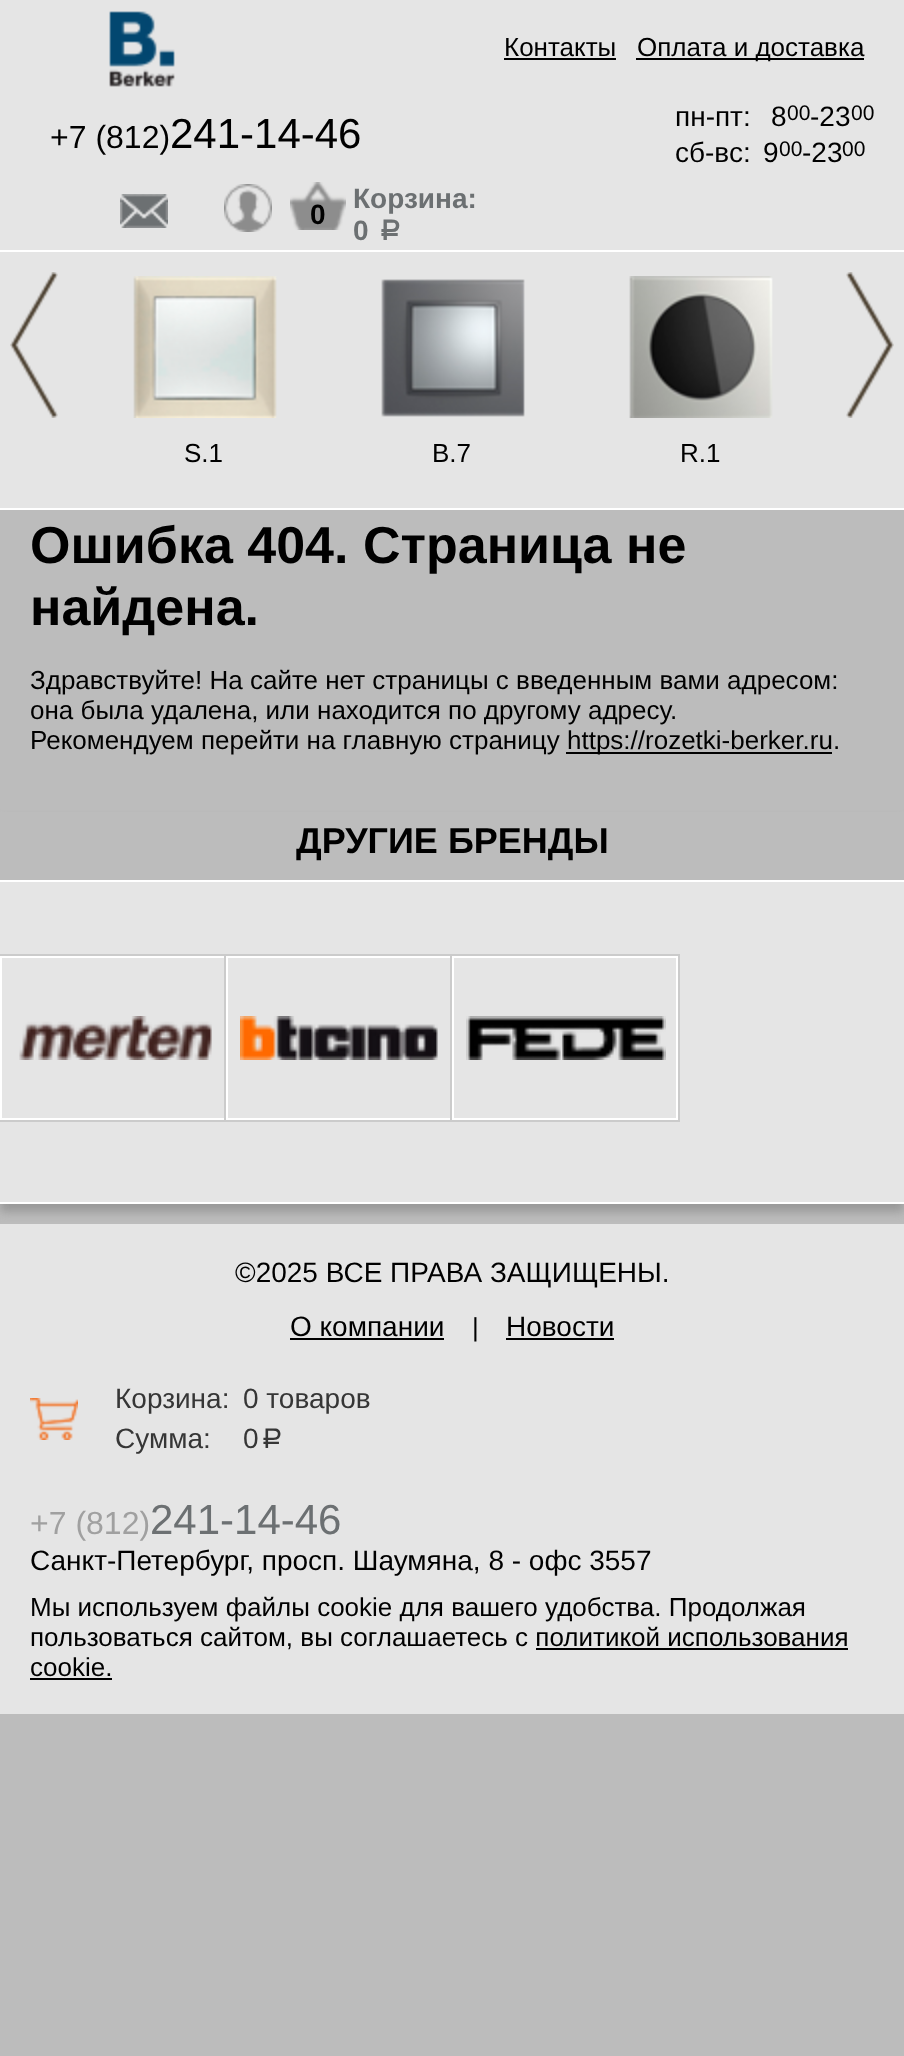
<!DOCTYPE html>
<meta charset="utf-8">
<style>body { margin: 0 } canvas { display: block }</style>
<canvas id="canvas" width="904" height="2056"></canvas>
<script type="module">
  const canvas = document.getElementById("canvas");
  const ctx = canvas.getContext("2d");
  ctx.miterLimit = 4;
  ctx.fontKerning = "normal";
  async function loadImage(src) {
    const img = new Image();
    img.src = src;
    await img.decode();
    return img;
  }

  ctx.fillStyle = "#bcbcbc";
  ctx.fillRect(0, 0, 904, 2056);
  ctx.fillStyle = "#e5e5e5";
  ctx.fillRect(0, 0, 904, 250);
  ctx.drawImage(await loadImage("img1.png"), 109, 11, 66, 76);
  ctx.font = "26px Liberation Sans";
  ctx.fillStyle = "#000000";
  ctx.fillText("Контакты", 504, 56);
  ctx.fillRect(504, 58, 112, 2);
  ctx.fillRect(636, 58, 228, 2);
  ctx.fillText("Оплата и доставка", 637, 56);
  ctx.font = "32px Liberation Sans";
  ctx.fillText("+7 (812)", 50, 148);
  ctx.font = "42px Liberation Sans";
  ctx.fillText("241-14-46", 170, 148);
  ctx.font = "28px Liberation Sans";
  ctx.fillText("пн-пт:", 675, 126);
  ctx.fillText("8", 771, 126);
  ctx.font = "21px Liberation Sans";
  ctx.fillText("00", 787, 120);
  ctx.font = "28px Liberation Sans";
  ctx.fillText("-23", 810, 126);
  ctx.font = "21px Liberation Sans";
  ctx.fillText("00", 851, 120);
  ctx.font = "28px Liberation Sans";
  ctx.fillText("сб-вс:", 675, 162);
  ctx.fillText("9", 763, 162);
  ctx.font = "21px Liberation Sans";
  ctx.fillText("00", 779, 156);
  ctx.font = "28px Liberation Sans";
  ctx.fillText("-23", 802, 162);
  ctx.font = "21px Liberation Sans";
  ctx.fillText("00", 842, 156);
  ctx.drawImage(await loadImage("img2.png"), 120, 194, 48, 34);
  ctx.drawImage(await loadImage("img3.png"), 224, 184, 48, 48);
  ctx.drawImage(await loadImage("img4.png"), 290, 182, 56, 48);
  ctx.font = "bold 28px Liberation Sans";
  ctx.fillText("0", 310, 224);
  ctx.fillStyle = "#6c7072";
  ctx.fillText("Корзина:", 353, 208);
  ctx.fillText("0", 353, 240);
  ctx.font = "bold 28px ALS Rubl";
  ctx.fillText("a", 377, 240);
  ctx.fillStyle = "#e5e5e5";
  ctx.fillRect(0, 252, 904, 256);
  ctx.fillStyle = "#ffffff";
  ctx.fillRect(0, 250, 904, 2);
  ctx.fillRect(0, 508, 904, 2);
  ctx.drawImage(await loadImage("img5.png"), 10, 272, 48, 146);
  ctx.drawImage(await loadImage("img6.png"), 846, 272, 48, 146);
  ctx.drawImage(await loadImage("img7.png"), 133, 276, 144, 142);
  ctx.font = "26px Liberation Sans";
  ctx.fillStyle = "#000000";
  ctx.fillText("S.1", 184, 462);
  ctx.drawImage(await loadImage("img8.png"), 381, 279, 144, 138);
  ctx.fillText("B.7", 432, 462);
  ctx.drawImage(await loadImage("img9.png"), 629, 276, 144, 142);
  ctx.fillText("R.1", 680, 462);
  ctx.font = "bold 52px Liberation Sans";
  ctx.fillText("Ошибка 404. Страница не", 30, 563);
  ctx.fillText("найдена.", 30, 625);
  ctx.font = "26px Liberation Sans";
  ctx.fillText("Здравствуйте! На сайте нет страницы с введенным вами адресом:", 30, 689);
  ctx.fillText("она была удалена, или находится по другому адресу.", 30, 719);
  ctx.fillText("Рекомендуем перейти на главную страницу", 30, 749);
  ctx.fillRect(566, 752, 266, 2);
  ctx.fillText("https://rozetki-berker.ru.", 567, 749);
  ctx.save();
  ctx.beginPath();
  ctx.moveTo(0, 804);
  ctx.lineTo(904, 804);
  ctx.lineTo(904, 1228);
  ctx.lineTo(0, 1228);
  ctx.closePath();
  ctx.moveTo(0, 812);
  ctx.lineTo(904, 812);
  ctx.lineTo(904, 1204);
  ctx.lineTo(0, 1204);
  ctx.closePath();
  ctx.clip("evenodd");
  ctx.fillStyle = "#989898";
  ctx.filter = "blur(5px)";
  ctx.beginPath();
  ctx.rect(0, 820, 904, 392);
  ctx.fill();
  ctx.filter = "none";
  ctx.restore();
  ctx.font = "bold 36px Liberation Sans";
  ctx.fillText("ДРУГИЕ БРЕНДЫ", 296, 853);
  ctx.fillStyle = "#e5e5e5";
  ctx.fillRect(0, 882, 904, 320);
  ctx.fillStyle = "#ffffff";
  ctx.fillRect(0, 880, 904, 2);
  ctx.fillRect(0, 1202, 904, 2);
  ctx.strokeStyle = "#ffffff";
  ctx.lineWidth = 2;
  ctx.strokeRect(1, 957, 224, 162);
  ctx.drawImage(await loadImage("img10.png"), 19, 1016, 193, 44);
  ctx.strokeStyle = "#cbcbcb";
  ctx.strokeRect(-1, 955, 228, 166);
  ctx.strokeStyle = "#ffffff";
  ctx.strokeRect(227, 957, 224, 162);
  ctx.drawImage(await loadImage("img11.png"), 240, 1016, 198, 44);
  ctx.strokeStyle = "#cbcbcb";
  ctx.strokeRect(225, 955, 228, 166);
  ctx.strokeStyle = "#ffffff";
  ctx.strokeRect(453, 957, 224, 162);
  ctx.drawImage(await loadImage("img12.png"), 466, 1016, 200, 44);
  ctx.strokeStyle = "#cbcbcb";
  ctx.strokeRect(451, 955, 228, 166);
  ctx.fillStyle = "#e5e5e5";
  ctx.fillRect(0, 1224, 904, 490);
  ctx.font = "28px Liberation Sans";
  ctx.fillStyle = "#000000";
  ctx.fillText("©2025 ВСЕ ПРАВА ЗАЩИЩЕНЫ.", 235, 1282);
  ctx.fillText("О компании", 290, 1336);
  ctx.fillRect(290, 1338, 154, 2);
  ctx.font = "26px Liberation Sans";
  ctx.fillText("|", 472, 1336);
  ctx.font = "28px Liberation Sans";
  ctx.fillText("Новости", 506, 1336);
  ctx.fillRect(506, 1338, 108, 2);
  ctx.drawImage(await loadImage("img13.png"), 30, 1398, 48, 42);
  ctx.fillStyle = "#363636";
  ctx.fillText("Корзина:", 115, 1408);
  ctx.fillText("0 товаров", 243, 1408);
  ctx.fillText("Сумма:", 115, 1448);
  ctx.fillText("0", 243, 1448);
  ctx.font = "28px ALS Rubl";
  ctx.fillText("a", 259, 1448);
  ctx.font = "32px Liberation Sans";
  ctx.fillStyle = "#a0a0a0";
  ctx.fillText("+7 (812)", 30, 1534);
  ctx.font = "42px Liberation Sans";
  ctx.fillStyle = "#6c7072";
  ctx.fillText("241-14-46", 150, 1534);
  ctx.font = "28px Liberation Sans";
  ctx.fillStyle = "#000000";
  ctx.fillText("Санкт-Петербург, просп. Шаумяна, 8 - офс 3557", 30, 1570);
  ctx.font = "26px Liberation Sans";
  ctx.fillText("Мы используем файлы cookie для вашего удобства. Продолжая", 30, 1616);
  ctx.fillText("пользоваться сайтом, вы соглашаетесь с политикой использования", 30, 1646);
  ctx.fillText("cookie.", 30, 1676);
  ctx.fillRect(536, 1648, 312, 2);
  ctx.fillRect(30, 1678, 82, 2);
</script>
